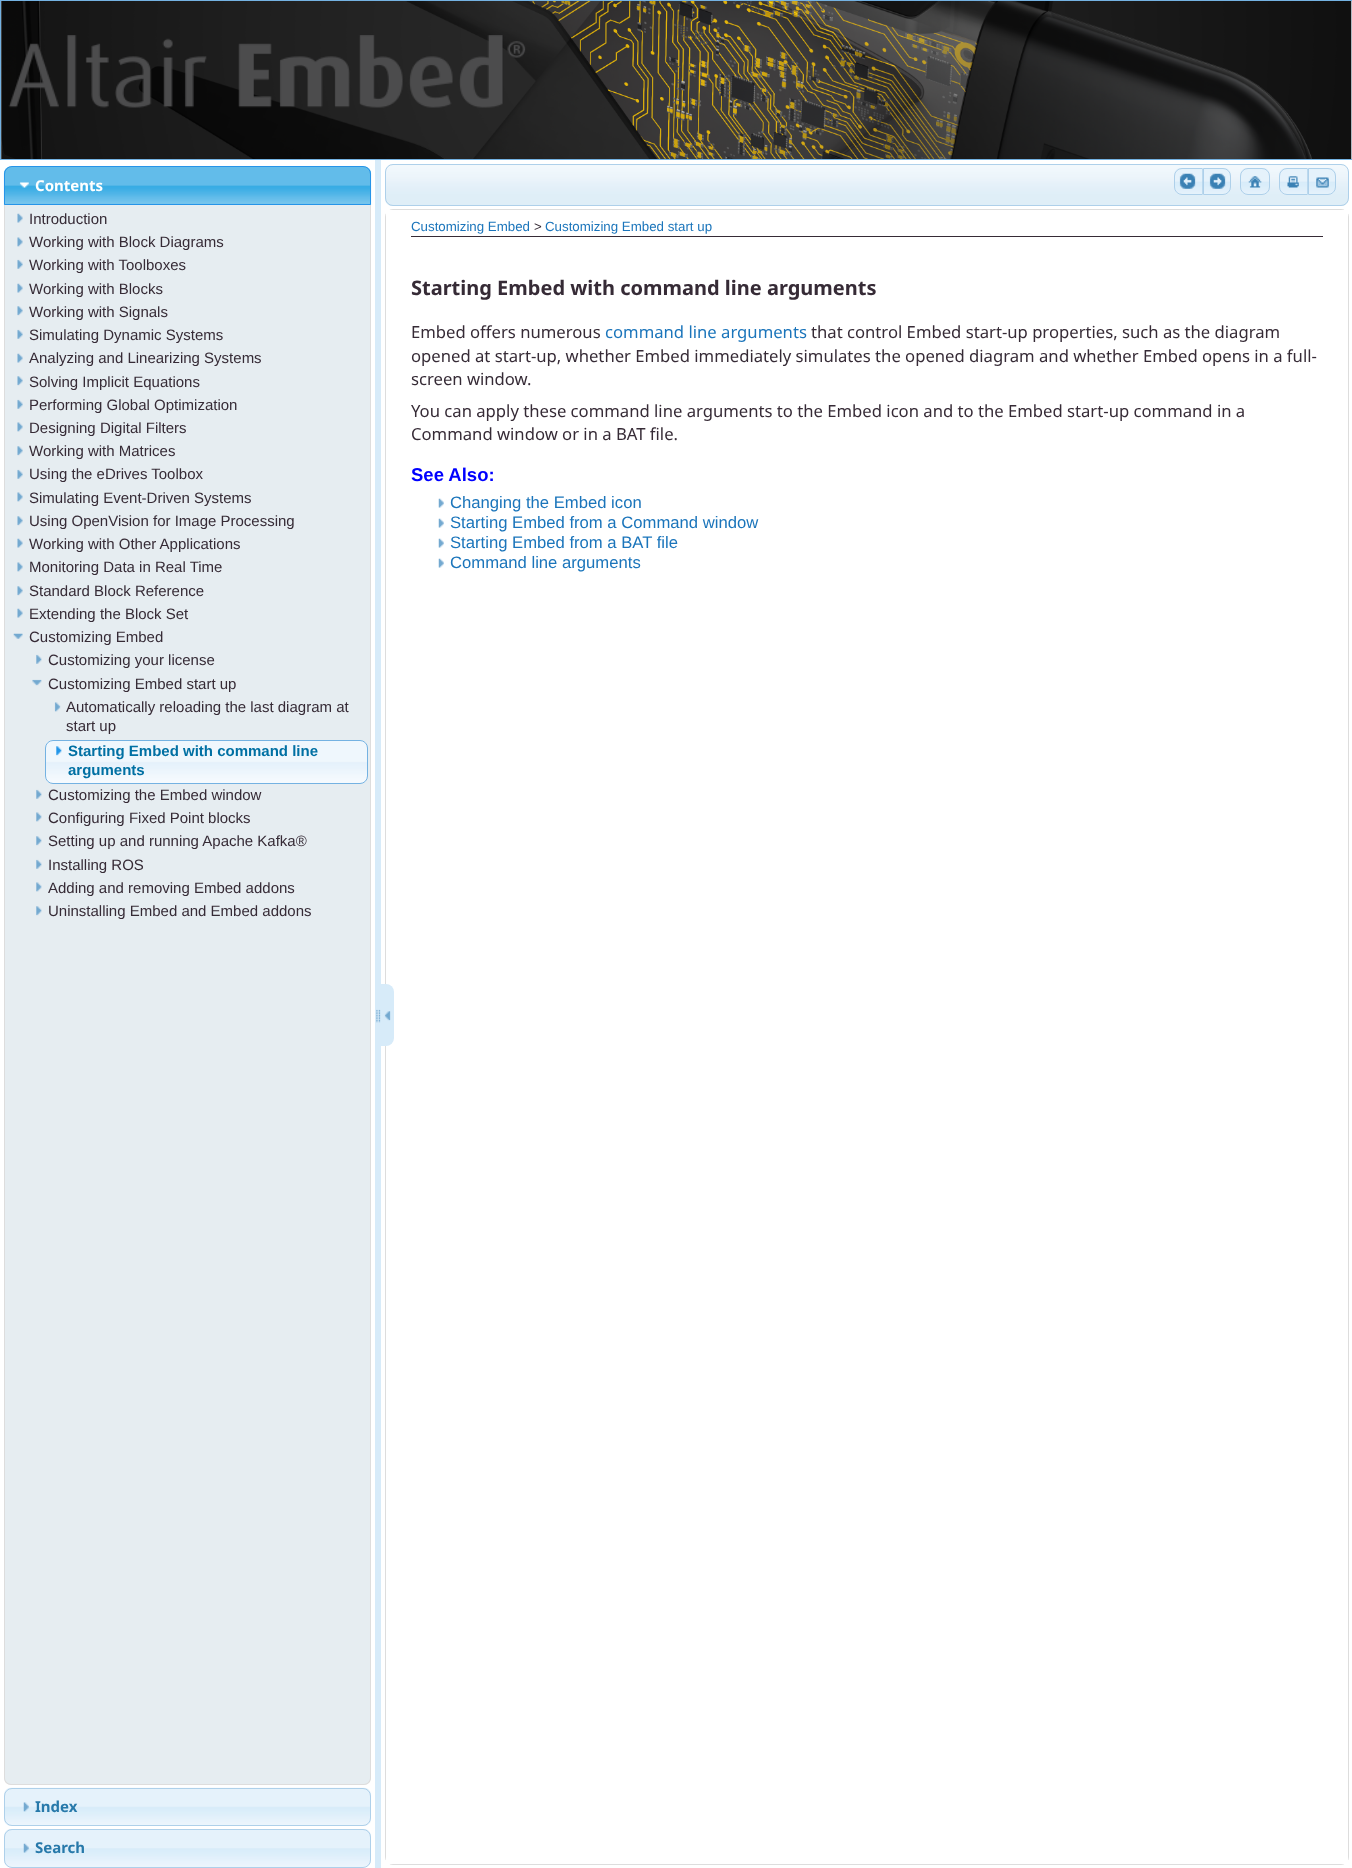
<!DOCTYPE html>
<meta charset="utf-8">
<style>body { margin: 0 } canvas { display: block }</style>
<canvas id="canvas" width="1352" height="1868"></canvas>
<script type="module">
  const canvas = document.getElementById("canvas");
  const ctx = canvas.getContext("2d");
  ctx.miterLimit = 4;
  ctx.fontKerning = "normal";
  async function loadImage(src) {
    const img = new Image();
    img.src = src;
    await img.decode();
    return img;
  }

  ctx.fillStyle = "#ffffff";
  ctx.fillRect(0, 0, 1352, 1868);
  ctx.fillStyle = "#e4f1fb";
  ctx.fillRect(1, 1, 1351, 158);
  ctx.drawImage(await loadImage("img1.png"), 1, 1, 1351, 158);
  ctx.strokeStyle = "#74b2e2";
  ctx.strokeRect(0.5, 0.5, 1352, 159);
  ctx.drawImage(await loadImage("img2.png"), 8, 35, 518, 73);
  ctx.drawImage(await loadImage("img3.png"), 3, 166, 369, 39);
  ctx.beginPath();
  ctx.roundRect(4.5, 166.5, 366, 38, [7.5, 7.5, 0, 0]);
  ctx.strokeStyle = "#2694e8";
  ctx.stroke();
  ctx.drawImage(await loadImage("img4.png"), 19, 182, 10, 6);
  ctx.font = "bold 15px Noto Sans";
  ctx.fillStyle = "#ffffff";
  ctx.fillText("Contents", 35, 191);
  ctx.fillStyle = "#e6edf1";
  ctx.beginPath();
  ctx.roundRect(4, 205, 367, 1580, [0, 0, 8, 8]);
  ctx.fill();
  ctx.fillStyle = "#dddddd";
  ctx.beginPath();
  ctx.moveTo(4, 205);
  ctx.lineTo(371, 205);
  ctx.lineTo(371, 1778);
  ctx.bezierCurveTo(371, 1782, 368, 1785, 364, 1785);
  ctx.lineTo(11, 1785);
  ctx.bezierCurveTo(7, 1785, 4, 1782, 4, 1778);
  ctx.closePath();
  ctx.moveTo(5, 205);
  ctx.lineTo(370, 205);
  ctx.lineTo(370, 1778);
  ctx.bezierCurveTo(370, 1781, 367, 1784, 364, 1784);
  ctx.lineTo(11, 1784);
  ctx.bezierCurveTo(8, 1784, 5, 1781, 5, 1778);
  ctx.closePath();
  ctx.fill("evenodd");
  ctx.drawImage(await loadImage("img5.png"), 17, 213, 6, 10);
  ctx.font = "15px Liberation Sans";
  ctx.fillStyle = "#362b36";
  ctx.fillText("Introduction", 29, 224);
  ctx.drawImage(await loadImage("img6.png"), 17, 237, 6, 10);
  ctx.fillText("Working with Block Diagrams", 29, 247);
  ctx.drawImage(await loadImage("img7.png"), 17, 259, 6, 10);
  ctx.fillText("Working with Toolboxes", 29, 270);
  ctx.drawImage(await loadImage("img5.png"), 17, 283, 6, 10);
  ctx.fillText("Working with Blocks", 29, 294);
  ctx.drawImage(await loadImage("img8.png"), 17, 306, 6, 10);
  ctx.fillText("Working with Signals", 29, 317);
  ctx.drawImage(await loadImage("img7.png"), 17, 329, 6, 10);
  ctx.fillText("Simulating Dynamic Systems", 29, 340);
  ctx.drawImage(await loadImage("img5.png"), 17, 353, 6, 10);
  ctx.fillText("Analyzing and Linearizing Systems", 29, 363);
  ctx.drawImage(await loadImage("img8.png"), 17, 376, 6, 10);
  ctx.fillText("Solving Implicit Equations", 29, 387);
  ctx.drawImage(await loadImage("img7.png"), 17, 399, 6, 10);
  ctx.fillText("Performing Global Optimization", 29, 410);
  ctx.drawImage(await loadImage("img6.png"), 17, 422, 6, 10);
  ctx.fillText("Designing Digital Filters", 29, 433);
  ctx.drawImage(await loadImage("img8.png"), 17, 446, 6, 10);
  ctx.fillText("Working with Matrices", 29, 456);
  ctx.drawImage(await loadImage("img7.png"), 17, 469, 6, 10);
  ctx.fillText("Using the eDrives Toolbox", 29, 479);
  ctx.drawImage(await loadImage("img6.png"), 17, 492, 6, 10);
  ctx.fillText("Simulating Event-Driven Systems", 29, 503);
  ctx.drawImage(await loadImage("img8.png"), 17, 516, 6, 10);
  ctx.fillText("Using OpenVision for Image Processing", 29, 526);
  ctx.drawImage(await loadImage("img5.png"), 17, 538, 6, 10);
  ctx.fillText("Working with Other Applications", 29, 549);
  ctx.drawImage(await loadImage("img6.png"), 17, 562, 6, 10);
  ctx.fillText("Monitoring Data in Real Time", 29, 572);
  ctx.drawImage(await loadImage("img9.png"), 17, 586, 6, 10);
  ctx.fillText("Standard Block Reference", 29, 596);
  ctx.drawImage(await loadImage("img5.png"), 17, 608, 6, 10);
  ctx.fillText("Extending the Block Set", 29, 619);
  ctx.drawImage(await loadImage("img10.png"), 13, 633, 10, 6);
  ctx.fillText("Customizing Embed", 29, 642);
  ctx.drawImage(await loadImage("img11.png"), 36, 654, 6, 10);
  ctx.fillText("Customizing your license", 48, 665);
  ctx.drawImage(await loadImage("img12.png"), 32, 679, 10, 7);
  ctx.fillText("Customizing Embed start up", 48, 689);
  ctx.drawImage(await loadImage("img13.png"), 54, 702, 7, 10);
  ctx.fillText("Automatically reloading the last diagram at", 66, 712);
  ctx.fillText("start up", 66, 731);
  ctx.drawImage(await loadImage("img14.png"), 45, 740, 322, 44);
  ctx.beginPath();
  ctx.roundRect(45.5, 740.5, 322, 43, 7.5);
  ctx.strokeStyle = "#74b2e2";
  ctx.stroke();
  ctx.drawImage(await loadImage("img15.png"), 56, 746, 6, 10);
  ctx.font = "bold 15px Liberation Sans";
  ctx.fillStyle = "#0070a3";
  ctx.fillText("Starting Embed with command line", 68, 756);
  ctx.fillText("arguments", 68, 775);
  ctx.drawImage(await loadImage("img11.png"), 36, 789, 6, 10);
  ctx.font = "15px Liberation Sans";
  ctx.fillStyle = "#362b36";
  ctx.fillText("Customizing the Embed window", 48, 800);
  ctx.drawImage(await loadImage("img16.png"), 36, 812, 6, 10);
  ctx.fillText("Configuring Fixed Point blocks", 48, 823);
  ctx.drawImage(await loadImage("img17.png"), 36, 836, 6, 10);
  ctx.fillText("Setting up and running Apache Kafka®", 48, 846);
  ctx.drawImage(await loadImage("img11.png"), 36, 859, 6, 10);
  ctx.fillText("Installing ROS", 48, 870);
  ctx.drawImage(await loadImage("img16.png"), 36, 882, 6, 10);
  ctx.fillText("Adding and removing Embed addons", 48, 893);
  ctx.drawImage(await loadImage("img17.png"), 36, 906, 6, 10);
  ctx.fillText("Uninstalling Embed and Embed addons", 48, 916);
  ctx.drawImage(await loadImage("img18.png"), 4, 1787, 367, 39);
  ctx.beginPath();
  ctx.roundRect(4.5, 1788.5, 366, 37, 7.5);
  ctx.strokeStyle = "#aed0ea";
  ctx.stroke();
  ctx.drawImage(await loadImage("img19.png"), 23, 1802, 6, 10);
  ctx.font = "bold 15px Noto Sans";
  ctx.fillStyle = "#2779aa";
  ctx.fillText("Index", 35, 1812);
  ctx.drawImage(await loadImage("img20.png"), 4, 1829, 367, 39);
  ctx.beginPath();
  ctx.roundRect(4.5, 1829.5, 366, 38, 7.5);
  ctx.stroke();
  ctx.drawImage(await loadImage("img21.png"), 23, 1843, 6, 10);
  ctx.fillText("Search", 35, 1853);
  ctx.fillStyle = "#d7ebf9";
  ctx.fillRect(375, 160, 6, 1708);
  ctx.drawImage(await loadImage("img22.png"), 376, 1009, 5, 14);
  ctx.drawImage(await loadImage("img33.png"), 385, 212, 964, 5);
  ctx.beginPath();
  ctx.roundRect(385.5, 209.5, 963, 1655, 7.5);
  ctx.strokeStyle = "#dddddd";
  ctx.stroke();
  ctx.fillStyle = "#ffffff";
  ctx.fillRect(386, 210, 962, 1654);
  ctx.fillStyle = "#d7ebf9";
  ctx.beginPath();
  ctx.roundRect(381, 984, 13, 62, [0, 8, 8, 0]);
  ctx.fill();
  ctx.drawImage(await loadImage("img23.png"), 384, 1011, 7, 10);
  ctx.drawImage(await loadImage("img24.png"), 385, 164, 964, 42);
  ctx.beginPath();
  ctx.roundRect(385.5, 164.5, 963, 41, 7.5);
  ctx.strokeStyle = "#aed0ea";
  ctx.stroke();
  ctx.drawImage(await loadImage("img25.png"), 1174, 168, 28, 27);
  ctx.beginPath();
  ctx.roundRect(1174.5, 168.5, 28, 26, [7.5, 0, 0, 7.5]);
  ctx.stroke();
  ctx.drawImage(await loadImage("img26.png"), 1179, 173, 17, 16);
  ctx.drawImage(await loadImage("img27.png"), 1202, 168, 29, 27);
  ctx.beginPath();
  ctx.roundRect(1203.5, 168.5, 27, 26, [0, 7.5, 7.5, 0]);
  ctx.stroke();
  ctx.drawImage(await loadImage("img28.png"), 1209, 173, 17, 16);
  ctx.drawImage(await loadImage("img29.png"), 1240, 168, 30, 27);
  ctx.beginPath();
  ctx.roundRect(1240.5, 168.5, 29, 26, 7.5);
  ctx.stroke();
  ctx.drawImage(await loadImage("img30.png"), 1248, 176, 14, 12);
  ctx.drawImage(await loadImage("img25.png"), 1279, 168, 28, 27);
  ctx.beginPath();
  ctx.roundRect(1279.5, 168.5, 28, 26, [7.5, 0, 0, 7.5]);
  ctx.stroke();
  ctx.drawImage(await loadImage("img31.png"), 1287, 176, 12, 12);
  ctx.drawImage(await loadImage("img27.png"), 1307, 168, 29, 27);
  ctx.beginPath();
  ctx.roundRect(1308.5, 168.5, 27, 26, [0, 7.5, 7.5, 0]);
  ctx.stroke();
  ctx.drawImage(await loadImage("img32.png"), 1316, 177, 13, 11);
  ctx.fillStyle = "#362b36";
  ctx.fillRect(411, 236, 912, 1);
  ctx.font = "13.3px Liberation Sans";
  ctx.fillStyle = "#1b75bb";
  ctx.fillText("Customizing Embed", 411, 231);
  ctx.fillStyle = "#362b36";
  ctx.fillText(">", 534, 231);
  ctx.fillStyle = "#1b75bb";
  ctx.fillText("Customizing Embed start up", 545, 231);
  ctx.font = "bold 20px Noto Sans";
  ctx.fillStyle = "#362b36";
  ctx.fillText("Starting Embed with command line arguments", 411, 295);
  ctx.font = "16.67px Noto Sans";
  ctx.fillText("Embed offers numerous", 411, 338);
  ctx.fillStyle = "#1b75bb";
  ctx.fillText("command line arguments", 605, 338);
  ctx.fillStyle = "#362b36";
  ctx.fillText("that control Embed start-up properties, such as the diagram", 811, 338);
  ctx.fillText("opened at start-up, whether Embed immediately simulates the opened diagram and whether Embed opens in a full-", 411, 362);
  ctx.fillText("screen window.", 411, 385);
  ctx.fillText("You can apply these command line arguments to the Embed icon and to the Embed start-up command in a", 411, 417);
  ctx.fillText("Command window or in a BAT file.", 411, 440);
  ctx.font = "bold 18.5px Liberation Sans";
  ctx.fillStyle = "#0000ff";
  ctx.fillText("See Also:", 411, 481);
  ctx.drawImage(await loadImage("img34.png"), 438, 498, 6, 10);
  ctx.font = "16.67px Liberation Sans";
  ctx.fillStyle = "#1b75bb";
  ctx.fillText("Changing the Embed icon", 450, 508);
  ctx.drawImage(await loadImage("img34.png"), 438, 518, 6, 10);
  ctx.fillText("Starting Embed from a Command window", 450, 528);
  ctx.drawImage(await loadImage("img34.png"), 438, 538, 6, 10);
  ctx.fillText("Starting Embed from a BAT file", 450, 548);
  ctx.drawImage(await loadImage("img34.png"), 438, 558, 6, 10);
  ctx.fillText("Command line arguments", 450, 568);
</script>
